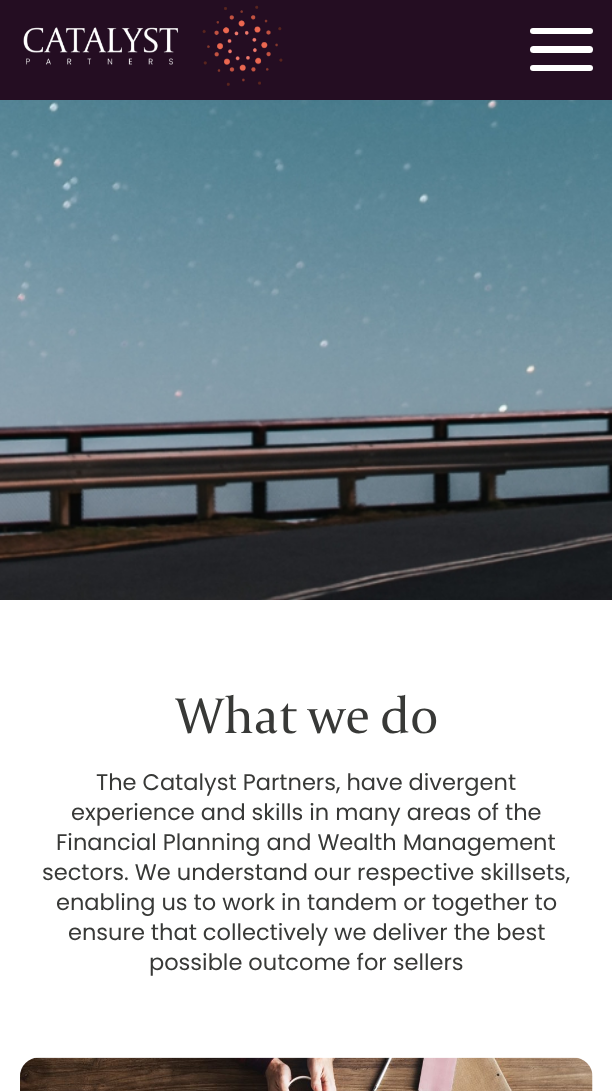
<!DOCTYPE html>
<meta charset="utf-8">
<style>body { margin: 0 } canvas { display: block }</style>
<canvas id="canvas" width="612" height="1091"></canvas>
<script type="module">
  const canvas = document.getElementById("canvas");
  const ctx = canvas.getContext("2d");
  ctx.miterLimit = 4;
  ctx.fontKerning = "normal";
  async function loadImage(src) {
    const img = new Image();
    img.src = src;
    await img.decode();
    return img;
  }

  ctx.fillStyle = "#ffffff";
  ctx.fillRect(0, 0, 612, 1091);
  ctx.fillStyle = "#240d22";
  ctx.fillRect(0, 0, 612, 100);
  ctx.drawImage(await loadImage("img1.png"), 23, 5, 260, 81);
  ctx.fillStyle = "#ffffff";
  ctx.beginPath();
  ctx.roundRect(530, 28, 63, 6, 3);
  ctx.fill();
  ctx.beginPath();
  ctx.roundRect(530, 46, 63, 7, 3.5);
  ctx.fill();
  ctx.beginPath();
  ctx.roundRect(530, 65, 63, 6, 3);
  ctx.fill();
  ctx.drawImage(await loadImage("img2.png"), 0, 100, 612, 500);
  ctx.font = "52.5px 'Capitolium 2'";
  ctx.fillStyle = "#383937";
  ctx.fillText("What we do", 175, 733);
  ctx.font = "22.5px Poppins";
  ctx.fillText("The Catalyst Partners, have divergent", 96, 790);
  ctx.fillText("experience and skills in many areas of the", 71, 820);
  ctx.fillText("Financial Planning and Wealth Management", 56, 850);
  ctx.fillText("sectors. We understand our respective skillsets,", 42, 880);
  ctx.fillText("enabling us to work in tandem or together to", 56, 910);
  ctx.fillText("ensure that collectively we deliver the best", 68, 940);
  ctx.fillText("possible outcome for sellers", 149, 970);
  ctx.drawImage(await loadImage("img3.png"), 20, 1057, 573, 34);
</script>
